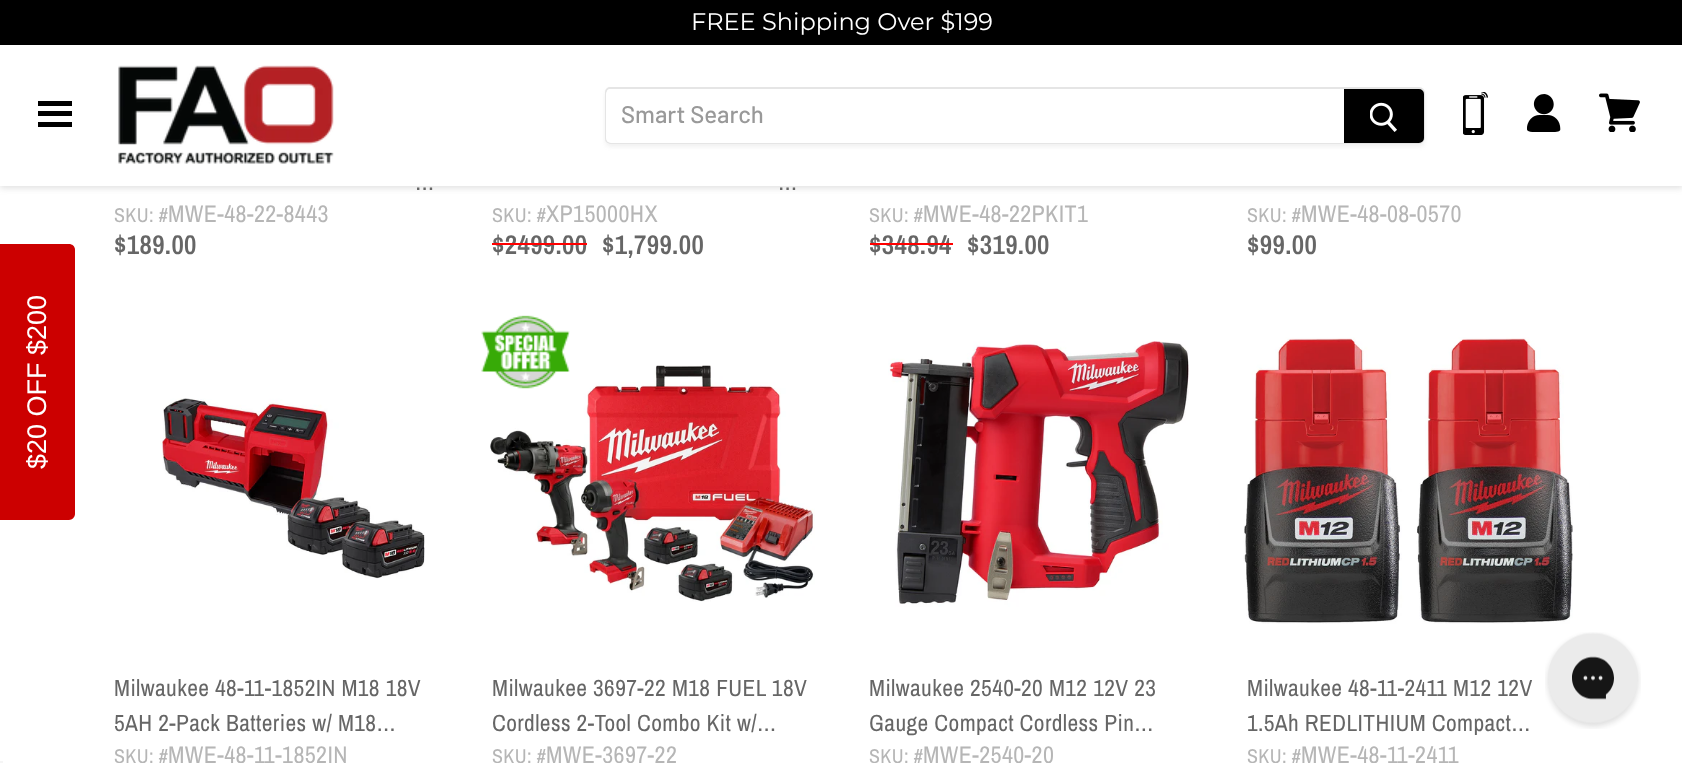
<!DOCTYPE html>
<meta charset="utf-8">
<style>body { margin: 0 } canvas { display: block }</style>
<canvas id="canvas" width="1682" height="763"></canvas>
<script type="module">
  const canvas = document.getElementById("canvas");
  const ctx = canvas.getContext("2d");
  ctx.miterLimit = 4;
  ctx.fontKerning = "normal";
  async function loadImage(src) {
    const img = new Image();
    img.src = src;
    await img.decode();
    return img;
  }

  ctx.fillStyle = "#ffffff";
  ctx.fillRect(0, 0, 1682, 763);
  ctx.fillStyle = "rgba(127, 127, 127, 0.25)";
  ctx.filter = "blur(3px)";
  ctx.beginPath();
  ctx.rect(0, 2, 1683, 186);
  ctx.fill();
  ctx.filter = "none";
  ctx.fillStyle = "#ffffff";
  ctx.fillRect(0, 45, 1682, 141);
  ctx.fillStyle = "#000000";
  ctx.fillRect(0, 0, 1682, 45);
  ctx.font = "100 24px Montserrat";
  ctx.fillStyle = "#ffffff";
  ctx.fillText("FREE Shipping Over $199", 691, 30);
  ctx.fillStyle = "#000000";
  ctx.fillRect(38, 101, 34, 5);
  ctx.fillRect(38, 111, 34, 5);
  ctx.fillRect(38, 122, 34, 5);
  ctx.drawImage(await loadImage("img1.png"), 118, 65, 216, 99);
  ctx.save();
  ctx.beginPath();
  ctx.moveTo(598, 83);
  ctx.lineTo(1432, 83);
  ctx.lineTo(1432, 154);
  ctx.lineTo(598, 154);
  ctx.closePath();
  ctx.moveTo(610, 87);
  ctx.lineTo(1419, 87);
  ctx.bezierCurveTo(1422.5, 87, 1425, 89.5, 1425, 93);
  ctx.lineTo(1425, 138);
  ctx.bezierCurveTo(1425, 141.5, 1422.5, 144, 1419, 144);
  ctx.lineTo(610, 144);
  ctx.bezierCurveTo(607, 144, 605, 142, 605, 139);
  ctx.lineTo(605, 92);
  ctx.bezierCurveTo(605, 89, 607, 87, 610, 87);
  ctx.closePath();
  ctx.clip("evenodd");
  ctx.fillStyle = "rgba(127, 127, 127, 0.11)";
  ctx.filter = "blur(2px)";
  ctx.beginPath();
  ctx.roundRect(605, 90, 820, 57, 6);
  ctx.fill();
  ctx.filter = "none";
  ctx.restore();
  ctx.beginPath();
  ctx.roundRect(606, 88, 818, 55, [4, 5, 5, 4]);
  ctx.strokeStyle = "rgba(127, 127, 127, 0.2)";
  ctx.lineWidth = 2;
  ctx.stroke();
  ctx.fillStyle = "#ffffff";
  ctx.beginPath();
  ctx.roundRect(606, 89, 738, 54, [5, 0, 0, 5]);
  ctx.fill();
  ctx.font = "500 24px Barlow";
  ctx.fillStyle = "#999999";
  ctx.fillText("Smart Search", 621, 123);
  ctx.fillStyle = "#000000";
  ctx.beginPath();
  ctx.roundRect(1345, 90, 78, 52, [0, 4, 4, 0]);
  ctx.fill();
  ctx.strokeStyle = "#000000";
  ctx.stroke();
  ctx.drawImage(await loadImage("img2.png"), 1370, 102, 27, 30);
  ctx.drawImage(await loadImage("img3.png"), 1463, 92, 25, 43);
  ctx.drawImage(await loadImage("img4.png"), 1527, 94, 34, 38);
  ctx.drawImage(await loadImage("img5.png"), 1599, 93, 41, 39);
  ctx.fillStyle = "#cc0000";
  ctx.beginPath();
  ctx.moveTo(0, 520);
  ctx.lineTo(0, 244);
  ctx.lineTo(69, 244);
  ctx.bezierCurveTo(72, 244, 75, 246, 75, 250);
  ctx.lineTo(75, 514);
  ctx.bezierCurveTo(75, 517, 72, 520, 69, 520);
  ctx.closePath();
  ctx.fill();
  ctx.font = "27px Liberation Sans";
  ctx.fillStyle = "#ffffff";
  ctx.save();
  ctx.translate(46, 469);
  ctx.rotate(-90 * Math.PI / 180);
  ctx.fillText("$20 OFF $200", 0, 0);
  ctx.restore();
  ctx.letterSpacing = "0.4px";
  ctx.font = "23.4px Archivo Narrow";
  ctx.fillStyle = "#666666";
  ctx.fillText("…", 415, 190);
  ctx.font = "20px Archivo Narrow";
  ctx.fillStyle = "#b6b6b6";
  ctx.fillText("SKU: #", 114, 222);
  ctx.font = "24px Archivo Narrow";
  ctx.fillText("MWE-48-22-8443", 168, 222);
  ctx.font = "600 27px Archivo Narrow";
  ctx.fillStyle = "#666666";
  ctx.fillText("$189.00", 114, 254);
  ctx.font = "23.4px Archivo Narrow";
  ctx.fillText("…", 778, 190);
  ctx.font = "20px Archivo Narrow";
  ctx.fillStyle = "#b6b6b6";
  ctx.fillText("SKU: #", 492, 222);
  ctx.font = "24px Archivo Narrow";
  ctx.fillText("XP15000HX", 546, 222);
  ctx.font = "600 27px Archivo Narrow";
  ctx.fillStyle = "#666666";
  ctx.fillText("$2499.00", 492, 254);
  ctx.fillStyle = "#ff0000";
  ctx.fillRect(492, 243, 95, 2);
  ctx.fillStyle = "#666666";
  ctx.fillText("$1,799.00", 602, 254);
  ctx.font = "20px Archivo Narrow";
  ctx.fillStyle = "#b6b6b6";
  ctx.fillText("SKU: #", 869, 222);
  ctx.font = "24px Archivo Narrow";
  ctx.fillText("MWE-48-22PKIT1", 923, 222);
  ctx.font = "600 27px Archivo Narrow";
  ctx.fillStyle = "#666666";
  ctx.fillText("$348.94", 869, 254);
  ctx.fillStyle = "#ff0000";
  ctx.fillRect(870, 243, 83, 2);
  ctx.fillStyle = "#666666";
  ctx.fillText("$319.00", 967, 254);
  ctx.font = "20px Archivo Narrow";
  ctx.fillStyle = "#b6b6b6";
  ctx.fillText("SKU: #", 1247, 222);
  ctx.font = "24px Archivo Narrow";
  ctx.fillText("MWE-48-08-0570", 1301, 222);
  ctx.font = "600 27px Archivo Narrow";
  ctx.fillStyle = "#666666";
  ctx.fillText("$99.00", 1247, 254);
  ctx.drawImage(await loadImage("img6.png"), 160, 398, 265, 181);
  ctx.font = "23.4px Archivo Narrow";
  ctx.fillText("Milwaukee 48-11-1852IN M18 18V", 114, 696);
  ctx.fillText("5AH 2-Pack Batteries w/ M18…", 114, 731);
  ctx.font = "20px Archivo Narrow";
  ctx.fillStyle = "#b6b6b6";
  ctx.fillText("SKU: #", 114, 763);
  ctx.font = "24px Archivo Narrow";
  ctx.fillText("MWE-48-11-1852IN", 168, 763);
  ctx.drawImage(await loadImage("img8.png"), 490, 365, 325, 237);
  ctx.drawImage(await loadImage("img7.png"), 481, 315, 89, 74);
  ctx.font = "23.4px Archivo Narrow";
  ctx.fillStyle = "#666666";
  ctx.fillText("Milwaukee 3697-22 M18 FUEL 18V", 492, 696);
  ctx.fillText("Cordless 2-Tool Combo Kit w/…", 492, 731);
  ctx.font = "20px Archivo Narrow";
  ctx.fillStyle = "#b6b6b6";
  ctx.fillText("SKU: #", 492, 763);
  ctx.font = "24px Archivo Narrow";
  ctx.fillText("MWE-3697-22", 546, 763);
  ctx.drawImage(await loadImage("img9.png"), 888, 341, 301, 266);
  ctx.font = "23.4px Archivo Narrow";
  ctx.fillStyle = "#666666";
  ctx.fillText("Milwaukee 2540-20 M12 12V 23", 869, 696);
  ctx.fillText("Gauge Compact Cordless Pin…", 869, 731);
  ctx.font = "20px Archivo Narrow";
  ctx.fillStyle = "#b6b6b6";
  ctx.fillText("SKU: #", 869, 763);
  ctx.font = "24px Archivo Narrow";
  ctx.fillText("MWE-2540-20", 923, 763);
  ctx.drawImage(await loadImage("img10.png"), 1243, 337, 330, 287);
  ctx.font = "23.4px Archivo Narrow";
  ctx.fillStyle = "#666666";
  ctx.fillText("Milwaukee 48-11-2411 M12 12V", 1247, 696);
  ctx.fillText("1.5Ah REDLITHIUM Compact…", 1247, 731);
  ctx.font = "20px Archivo Narrow";
  ctx.fillStyle = "#b6b6b6";
  ctx.fillText("SKU: #", 1247, 763);
  ctx.font = "24px Archivo Narrow";
  ctx.fillText("MWE-48-11-2411", 1301, 763);
  ctx.drawImage(await loadImage("img11.png"), 1545, 632, 96, 97);
  ctx.fillStyle = "#f5f5f5";
  ctx.fillRect(0, 761, 3, 2);
</script>
